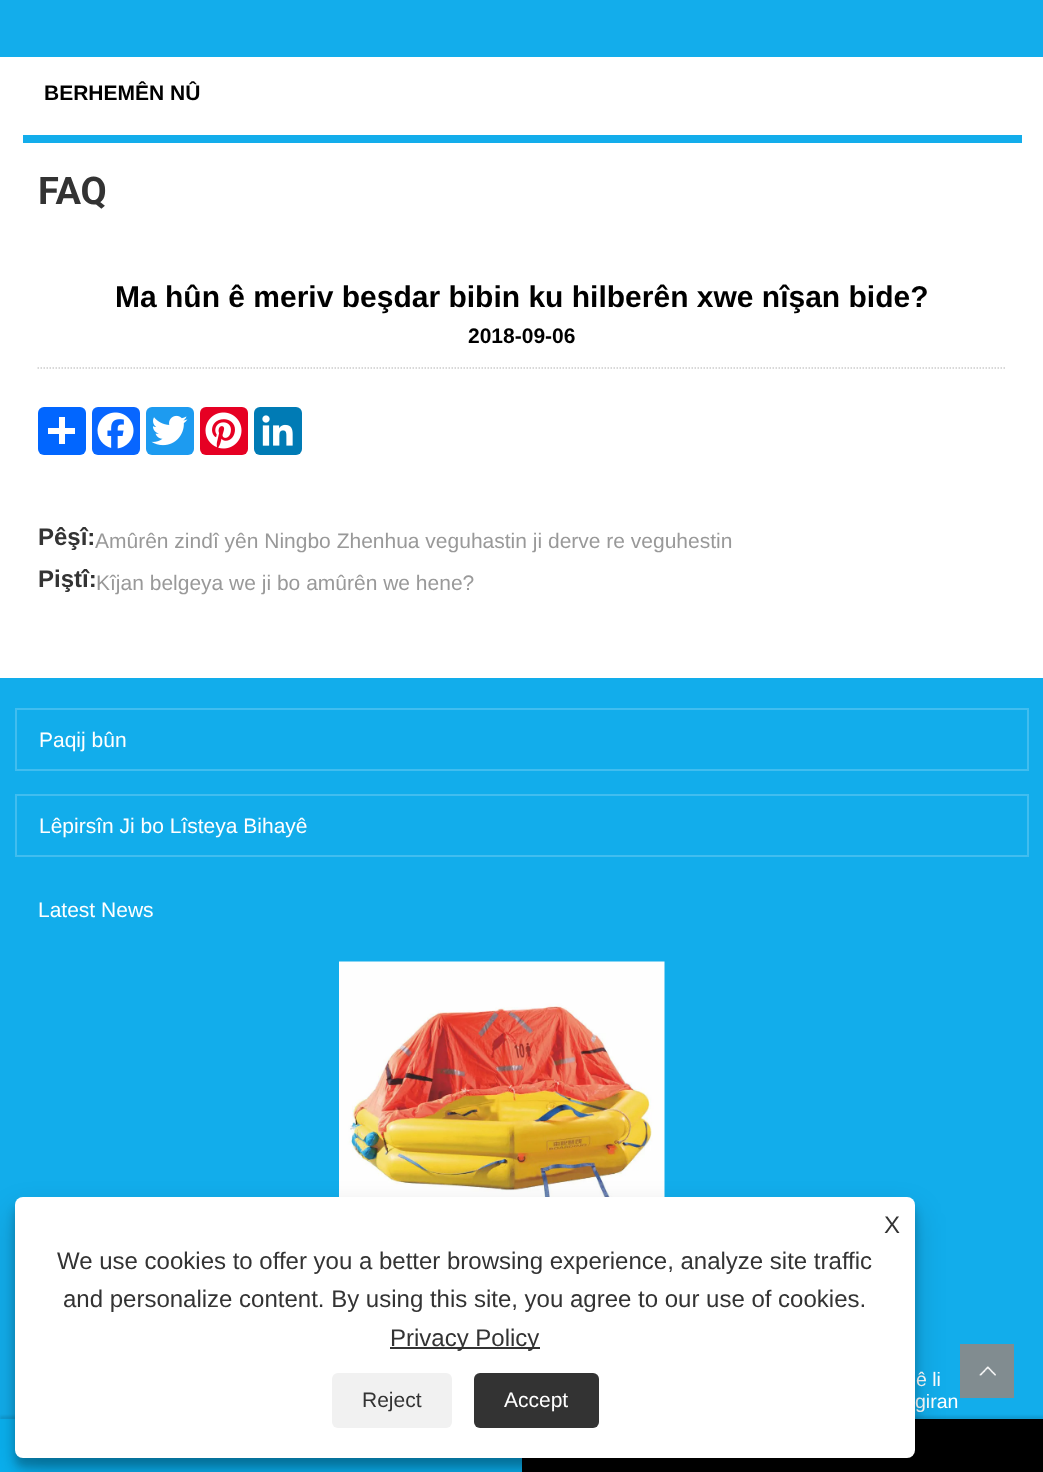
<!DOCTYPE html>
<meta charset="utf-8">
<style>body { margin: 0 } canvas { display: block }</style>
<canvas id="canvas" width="1043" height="1472"></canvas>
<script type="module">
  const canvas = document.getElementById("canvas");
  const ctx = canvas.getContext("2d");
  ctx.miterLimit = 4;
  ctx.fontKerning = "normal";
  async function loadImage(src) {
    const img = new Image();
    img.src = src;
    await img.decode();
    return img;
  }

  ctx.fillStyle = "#ffffff";
  ctx.fillRect(0, 0, 1043, 1472);
  ctx.fillStyle = "#13adeb";
  ctx.fillRect(0, 0, 1043, 57);
  ctx.font = "bold 21px Liberation Sans";
  ctx.fillStyle = "#000000";
  ctx.fillText("BERHEMÊN NÛ", 44, 100);
  ctx.fillStyle = "#13adeb";
  ctx.fillRect(23, 135, 999, 8);
  ctx.font = "bold 38px Roboto";
  ctx.fillStyle = "#333333";
  ctx.fillText("FAQ", 38, 204);
  ctx.beginPath();
  ctx.moveTo(37.5, 368);
  ctx.lineTo(1006.5, 368);
  ctx.strokeStyle = "#cccccc";
  ctx.lineWidth = 1.5;
  ctx.setLineDash([1.5, 1.5]);
  ctx.stroke();
  ctx.font = "bold 30px Liberation Sans";
  ctx.fillStyle = "#000000";
  ctx.fillText("Ma hûn ê meriv beşdar bibin ku hilberên xwe nîşan bide?", 115, 307);
  ctx.font = "bold 21px Liberation Sans";
  ctx.fillText("2018-09-06", 468, 343);
  ctx.fillStyle = "#0166ff";
  ctx.beginPath();
  ctx.roundRect(38, 407, 48, 48, 6);
  ctx.fill();
  ctx.fillStyle = "#ffffff";
  ctx.fillRect(59, 417, 6, 27);
  ctx.fillRect(48, 428, 27, 6);
  ctx.fillStyle = "#0866ff";
  ctx.beginPath();
  ctx.roundRect(92, 407, 48, 48, 6);
  ctx.fill();
  ctx.drawImage(await loadImage("img1.png"), 97, 412, 37, 37);
  ctx.fillStyle = "#1d9bf0";
  ctx.beginPath();
  ctx.roundRect(146, 407, 48, 48, 6);
  ctx.fill();
  ctx.drawImage(await loadImage("img2.png"), 151, 415, 37, 31);
  ctx.fillStyle = "#e60023";
  ctx.beginPath();
  ctx.roundRect(200, 407, 48, 48, 6);
  ctx.fill();
  ctx.drawImage(await loadImage("img3.png"), 205, 412, 37, 37);
  ctx.fillStyle = "#007bb5";
  ctx.beginPath();
  ctx.roundRect(254, 407, 48, 48, 6);
  ctx.fill();
  ctx.drawImage(await loadImage("img4.png"), 262, 415, 31, 31);
  ctx.font = "bold 24px Liberation Sans";
  ctx.fillStyle = "#333333";
  ctx.fillText("Pêşî:", 38, 545);
  ctx.font = "21px Liberation Sans";
  ctx.fillStyle = "#999999";
  ctx.fillText("Amûrên zindî yên Ningbo Zhenhua veguhastin ji derve re veguhestin", 95, 548);
  ctx.font = "bold 24px Liberation Sans";
  ctx.fillStyle = "#333333";
  ctx.fillText("Piştî:", 38, 587);
  ctx.font = "21px Liberation Sans";
  ctx.fillStyle = "#999999";
  ctx.fillText("Kîjan belgeya we ji bo amûrên we hene?", 96, 590);
  ctx.fillStyle = "#12adeb";
  ctx.fillRect(0, 678, 1043, 741);
  ctx.fillStyle = "rgba(0, 0, 0, 0.1)";
  ctx.filter = "blur(1px)";
  ctx.beginPath();
  ctx.rect(0, 1416, 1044, 54);
  ctx.fill();
  ctx.filter = "none";
  ctx.fillStyle = "#000000";
  ctx.fillRect(522, 1419, 521, 53);
  ctx.fillStyle = "#0ab1f0";
  ctx.fillRect(0, 1419, 522, 53);
  ctx.strokeStyle = "#41bdef";
  ctx.lineWidth = 2;
  ctx.setLineDash([]);
  ctx.strokeRect(16, 709, 1012, 61);
  ctx.fillStyle = "#ffffff";
  ctx.fillText("Paqij bûn", 39, 747);
  ctx.strokeRect(16, 795, 1012, 61);
  ctx.fillText("Lêpirsîn Ji bo Lîsteya Bihayê", 39, 833);
  ctx.fillText("Latest News", 38, 917);
  ctx.drawImage(await loadImage("img5.png"), 339, 961, 326, 236);
  ctx.font = "19.5px Liberation Sans";
  ctx.fillText("ê li", 916, 1386);
  ctx.fillText("giran", 915, 1408);
  ctx.fillStyle = "#818c90";
  ctx.fillRect(960, 1344, 54, 54);
  ctx.drawImage(await loadImage("img6.png"), 979, 1366, 17, 10);
  ctx.fillStyle = "rgba(0, 0, 0, 0.23)";
  ctx.filter = "blur(4.5px)";
  ctx.beginPath();
  ctx.roundRect(15, 1206, 900, 261, 8);
  ctx.fill();
  ctx.filter = "none";
  ctx.fillStyle = "rgba(0, 0, 0, 0.19)";
  ctx.filter = "blur(15px)";
  ctx.beginPath();
  ctx.roundRect(15, 1212, 900, 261, 8);
  ctx.fill();
  ctx.filter = "none";
  ctx.fillStyle = "#ffffff";
  ctx.beginPath();
  ctx.roundRect(15, 1197, 900, 261, 8);
  ctx.fill();
  ctx.font = "24px Liberation Sans";
  ctx.fillStyle = "#333333";
  ctx.fillText("X", 884, 1233);
  ctx.fillText("We use cookies to offer you a better browsing experience, analyze site traffic", 57, 1269);
  ctx.fillText("and personalize content. By using this site, you agree to our use of cookies.", 63, 1307);
  ctx.fillRect(390, 1347, 150, 2);
  ctx.fillText("Privacy Policy", 390, 1346);
  ctx.fillStyle = "#f1f1f1";
  ctx.beginPath();
  ctx.roundRect(332, 1373, 120, 55, 6);
  ctx.fill();
  ctx.font = "21px Liberation Sans";
  ctx.fillStyle = "#333333";
  ctx.fillText("Reject", 362, 1407);
  ctx.beginPath();
  ctx.roundRect(474, 1373, 125, 55, 6);
  ctx.fill();
  ctx.fillStyle = "#ffffff";
  ctx.fillText("Accept", 504, 1407);
</script>
